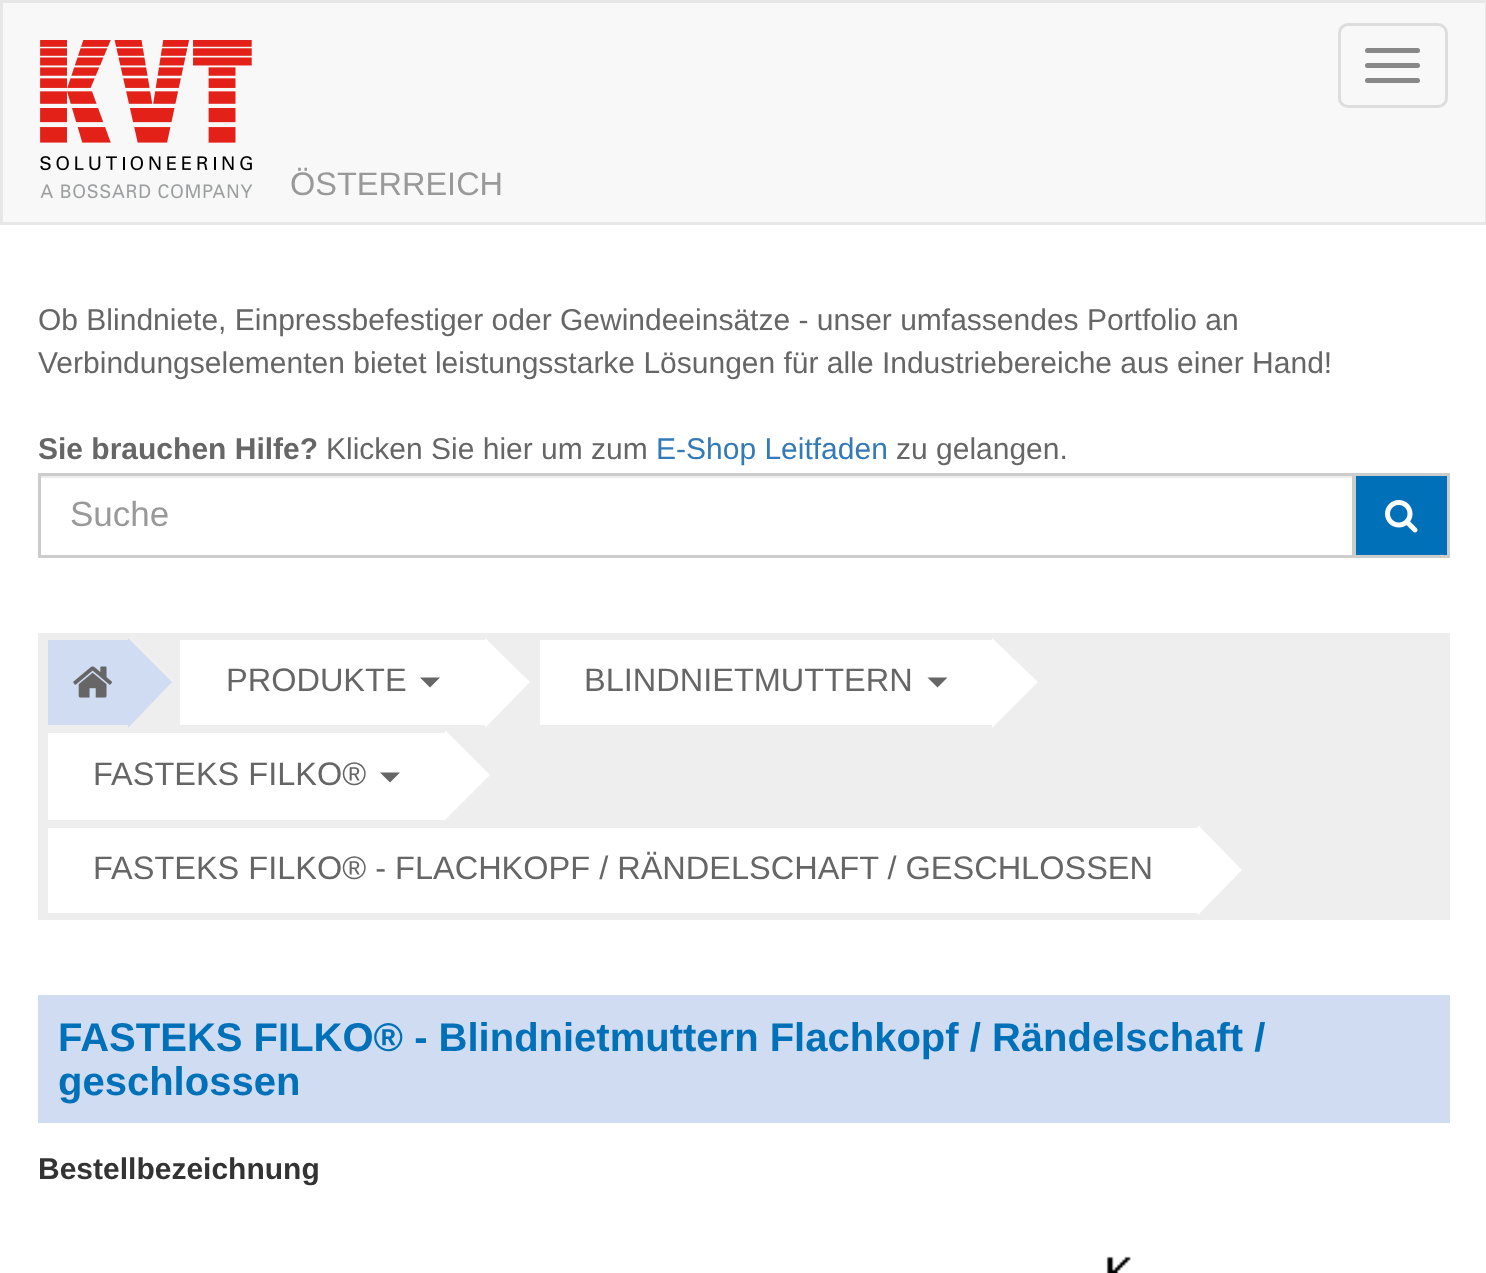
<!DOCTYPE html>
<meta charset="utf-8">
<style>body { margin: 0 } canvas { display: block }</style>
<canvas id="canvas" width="1486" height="1273"></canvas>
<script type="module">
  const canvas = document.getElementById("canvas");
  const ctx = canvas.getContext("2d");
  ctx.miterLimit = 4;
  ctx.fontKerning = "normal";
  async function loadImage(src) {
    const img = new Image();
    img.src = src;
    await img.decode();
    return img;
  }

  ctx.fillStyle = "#ffffff";
  ctx.fillRect(0, 0, 1486, 1273);
  ctx.fillStyle = "#f8f8f8";
  ctx.beginPath();
  ctx.rect(1.5, 1.5, 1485, 222);
  ctx.fill();
  ctx.strokeStyle = "#e7e7e7";
  ctx.lineWidth = 3;
  ctx.stroke();
  ctx.drawImage(await loadImage("img1.png"), 40, 40, 213, 159);
  ctx.font = "32.5px Liberation Sans";
  ctx.fillStyle = "#999999";
  ctx.fillText("ÖSTERREICH", 290, 195);
  ctx.beginPath();
  ctx.roundRect(1339.5, 24.5, 107, 82, 8.5);
  ctx.strokeStyle = "#dddddd";
  ctx.stroke();
  ctx.fillStyle = "#888888";
  ctx.beginPath();
  ctx.roundRect(1365, 48, 55, 5, 2.5);
  ctx.fill();
  ctx.beginPath();
  ctx.roundRect(1365, 63, 55, 5, 2.5);
  ctx.fill();
  ctx.beginPath();
  ctx.roundRect(1365, 78, 55, 5, 2.5);
  ctx.fill();
  ctx.font = "30px Liberation Sans";
  ctx.fillStyle = "#666666";
  ctx.fillText("Ob Blindniete, Einpressbefestiger oder Gewindeeinsätze - unser umfassendes Portfolio an", 38, 330);
  ctx.fillText("Verbindungselementen bietet leistungsstarke Lösungen für alle Industriebereiche aus einer Hand!", 38, 373);
  ctx.font = "bold 30px Liberation Sans";
  ctx.fillText("Sie brauchen Hilfe?", 38, 459);
  ctx.font = "30px Liberation Sans";
  ctx.fillText("Klicken Sie hier um zum", 326, 459);
  ctx.fillStyle = "#337ab7";
  ctx.fillText("E-Shop Leitfaden", 656, 459);
  ctx.fillStyle = "#666666";
  ctx.fillText("zu gelangen.", 896, 459);
  ctx.fillStyle = "#ececec";
  ctx.fillRect(40, 476, 1313, 2);
  ctx.strokeStyle = "#cccccc";
  ctx.strokeRect(39.5, 474.5, 1314, 82);
  ctx.font = "35px Liberation Sans";
  ctx.fillStyle = "#999999";
  ctx.fillText("Suche", 70, 526);
  ctx.fillStyle = "#0071b9";
  ctx.beginPath();
  ctx.rect(1354.5, 474.5, 94, 82);
  ctx.fill();
  ctx.stroke();
  ctx.drawImage(await loadImage("img2.png"), 1385, 500, 33, 33);
  ctx.fillStyle = "#eeeeee";
  ctx.fillRect(38, 633, 1412, 287);
  ctx.fillStyle = "#d0dcf1";
  ctx.fillRect(48, 640, 80, 85);
  ctx.drawImage(await loadImage("img3.png"), 73, 666, 40, 32);
  ctx.beginPath();
  ctx.moveTo(128, 728);
  ctx.lineTo(128, 638);
  ctx.lineTo(172, 682);
  ctx.closePath();
  ctx.fill();
  ctx.fillStyle = "#ffffff";
  ctx.fillRect(180, 640, 305, 85);
  ctx.font = "32.5px Liberation Sans";
  ctx.fillStyle = "#666666";
  ctx.fillText("PRODUKTE", 226, 691);
  ctx.beginPath();
  ctx.moveTo(420, 677.5);
  ctx.lineTo(440, 677.5);
  ctx.lineTo(430, 687.5);
  ctx.closePath();
  ctx.fill();
  ctx.fillStyle = "#ffffff";
  ctx.beginPath();
  ctx.moveTo(485, 728);
  ctx.lineTo(485, 638);
  ctx.lineTo(530, 682);
  ctx.closePath();
  ctx.fill();
  ctx.fillRect(540, 640, 452, 85);
  ctx.fillStyle = "#666666";
  ctx.fillText("BLINDNIETMUTTERN", 584, 691);
  ctx.beginPath();
  ctx.moveTo(927.5, 677.5);
  ctx.lineTo(947.5, 677.5);
  ctx.lineTo(937.5, 687.5);
  ctx.closePath();
  ctx.fill();
  ctx.fillStyle = "#ffffff";
  ctx.beginPath();
  ctx.moveTo(992, 728);
  ctx.lineTo(992, 638);
  ctx.lineTo(1038, 682);
  ctx.closePath();
  ctx.fill();
  ctx.fillRect(48, 733, 397, 87);
  ctx.fillStyle = "#666666";
  ctx.fillText("FASTEKS FILKO®", 93, 785);
  ctx.beginPath();
  ctx.moveTo(380, 772.5);
  ctx.lineTo(400, 772.5);
  ctx.lineTo(390, 782.5);
  ctx.closePath();
  ctx.fill();
  ctx.fillStyle = "#ffffff";
  ctx.beginPath();
  ctx.moveTo(445, 820);
  ctx.lineTo(445, 730);
  ctx.lineTo(490, 775);
  ctx.closePath();
  ctx.fill();
  ctx.fillRect(48, 828, 1150, 85);
  ctx.fillStyle = "#666666";
  ctx.fillText("FASTEKS FILKO® - FLACHKOPF / RÄNDELSCHAFT / GESCHLOSSEN", 93, 879);
  ctx.fillStyle = "#ffffff";
  ctx.beginPath();
  ctx.moveTo(1198, 915);
  ctx.lineTo(1198, 825);
  ctx.lineTo(1242, 870);
  ctx.closePath();
  ctx.fill();
  ctx.fillStyle = "#d0dcf1";
  ctx.fillRect(38, 995, 1412, 128);
  ctx.font = "bold 40px Liberation Sans";
  ctx.fillStyle = "#0071b9";
  ctx.fillText("FASTEKS FILKO® - Blindnietmuttern Flachkopf / Rändelschaft /", 58, 1051);
  ctx.fillText("geschlossen", 58, 1095);
  ctx.font = "bold 30px Liberation Sans";
  ctx.fillStyle = "#333333";
  ctx.fillText("Bestellbezeichnung", 38, 1179);
  ctx.drawImage(await loadImage("img4.png"), 1106, 1256, 25, 17);
</script>
